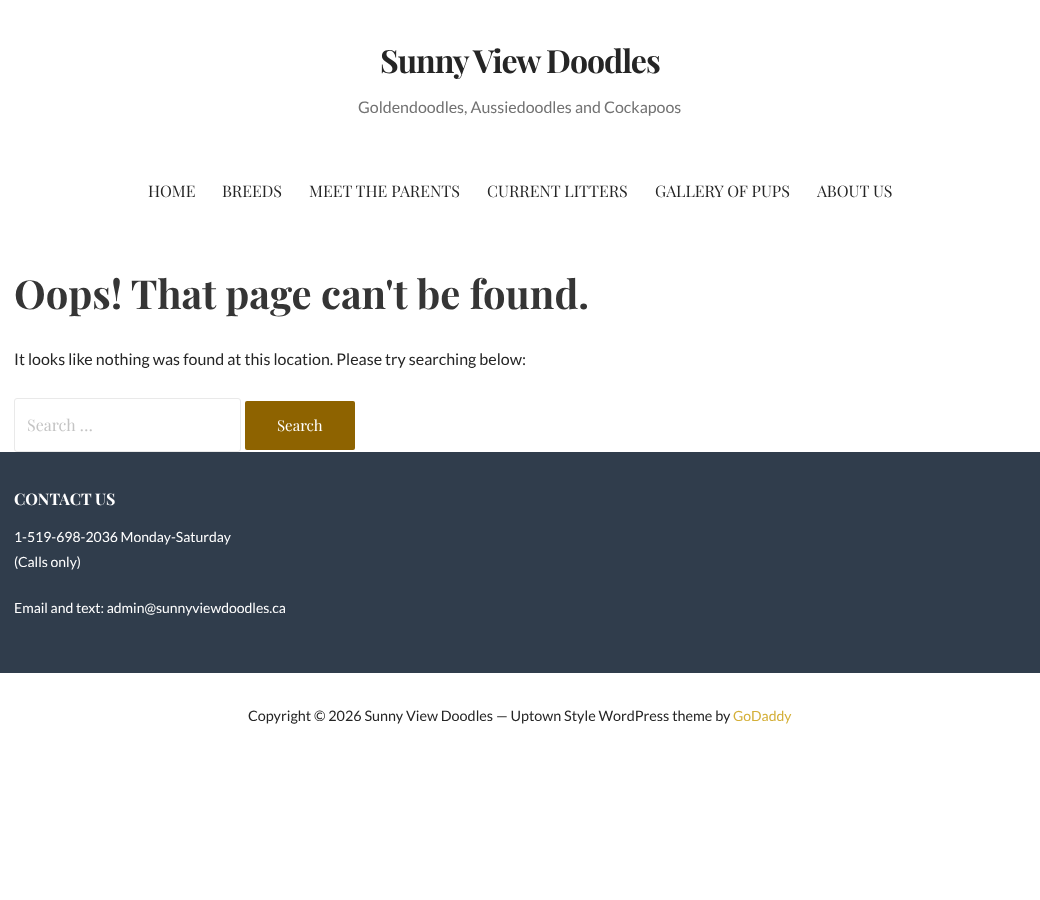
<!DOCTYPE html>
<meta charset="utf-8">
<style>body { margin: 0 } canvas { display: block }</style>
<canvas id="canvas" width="1040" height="900"></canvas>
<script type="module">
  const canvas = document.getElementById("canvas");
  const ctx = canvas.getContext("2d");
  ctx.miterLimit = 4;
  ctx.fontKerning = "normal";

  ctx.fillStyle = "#ffffff";
  ctx.fillRect(0, 0, 1040, 900);
  ctx.letterSpacing = "-1px";
  ctx.font = "bold 32px Playfair Display";
  ctx.fillStyle = "#252525";
  ctx.fillText("Sunny View Doodles", 380, 73);
  ctx.letterSpacing = "0px";
  ctx.font = "16px Lato";
  ctx.fillStyle = "#727272";
  ctx.fillText("Goldendoodles, Aussiedoodles and Cockapoos", 358, 113);
  ctx.font = "16px Playfair Display";
  ctx.fillStyle = "#252525";
  ctx.fillText("HOME", 148, 197);
  ctx.fillText("BREEDS", 222, 197);
  ctx.fillText("MEET THE PARENTS", 309, 197);
  ctx.fillText("CURRENT LITTERS", 487, 197);
  ctx.fillText("GALLERY OF PUPS", 655, 197);
  ctx.fillText("ABOUT US", 817, 197);
  ctx.font = "bold 40px Playfair Display";
  ctx.fillStyle = "#353535";
  ctx.fillText("Oops! That page can't be found.", 14, 309);
  ctx.font = "16px Lato";
  ctx.fillStyle = "#252525";
  ctx.fillText("It looks like nothing was found at this location. Please try searching below:", 14, 365);
  ctx.beginPath();
  ctx.roundRect(14.5, 398.5, 226, 53, 2.5);
  ctx.strokeStyle = "#e9e9e9";
  ctx.stroke();
  ctx.font = "16px Playfair Display";
  ctx.fillStyle = "#c4c4c4";
  ctx.fillText("Search …", 27, 431);
  ctx.fillStyle = "#8e6300";
  ctx.beginPath();
  ctx.roundRect(245, 401, 110, 49, 2);
  ctx.fill();
  ctx.font = "15px Playfair Display";
  ctx.fillStyle = "#ffffff";
  ctx.fillText("Search", 277, 431);
  ctx.fillStyle = "#303d4c";
  ctx.fillRect(0, 452, 1040, 221);
  ctx.font = "bold 16px Playfair Display";
  ctx.fillStyle = "#ffffff";
  ctx.fillText("CONTACT US", 14, 505);
  ctx.font = "14px Lato";
  ctx.fillText("1-519-698-2036 Monday-Saturday", 14, 542);
  ctx.fillText("(Calls only)", 14, 567);
  ctx.fillText("Email and text: admin@sunnyviewdoodles.ca", 14, 613);
  ctx.font = "14.4px Lato";
  ctx.fillStyle = "#252525";
  ctx.fillText("Copyright © 2026 Sunny View Doodles — Uptown Style WordPress theme by", 248, 721);
  ctx.font = "14px Lato";
  ctx.fillStyle = "#d4af37";
  ctx.fillText("GoDaddy", 733, 721);
</script>
